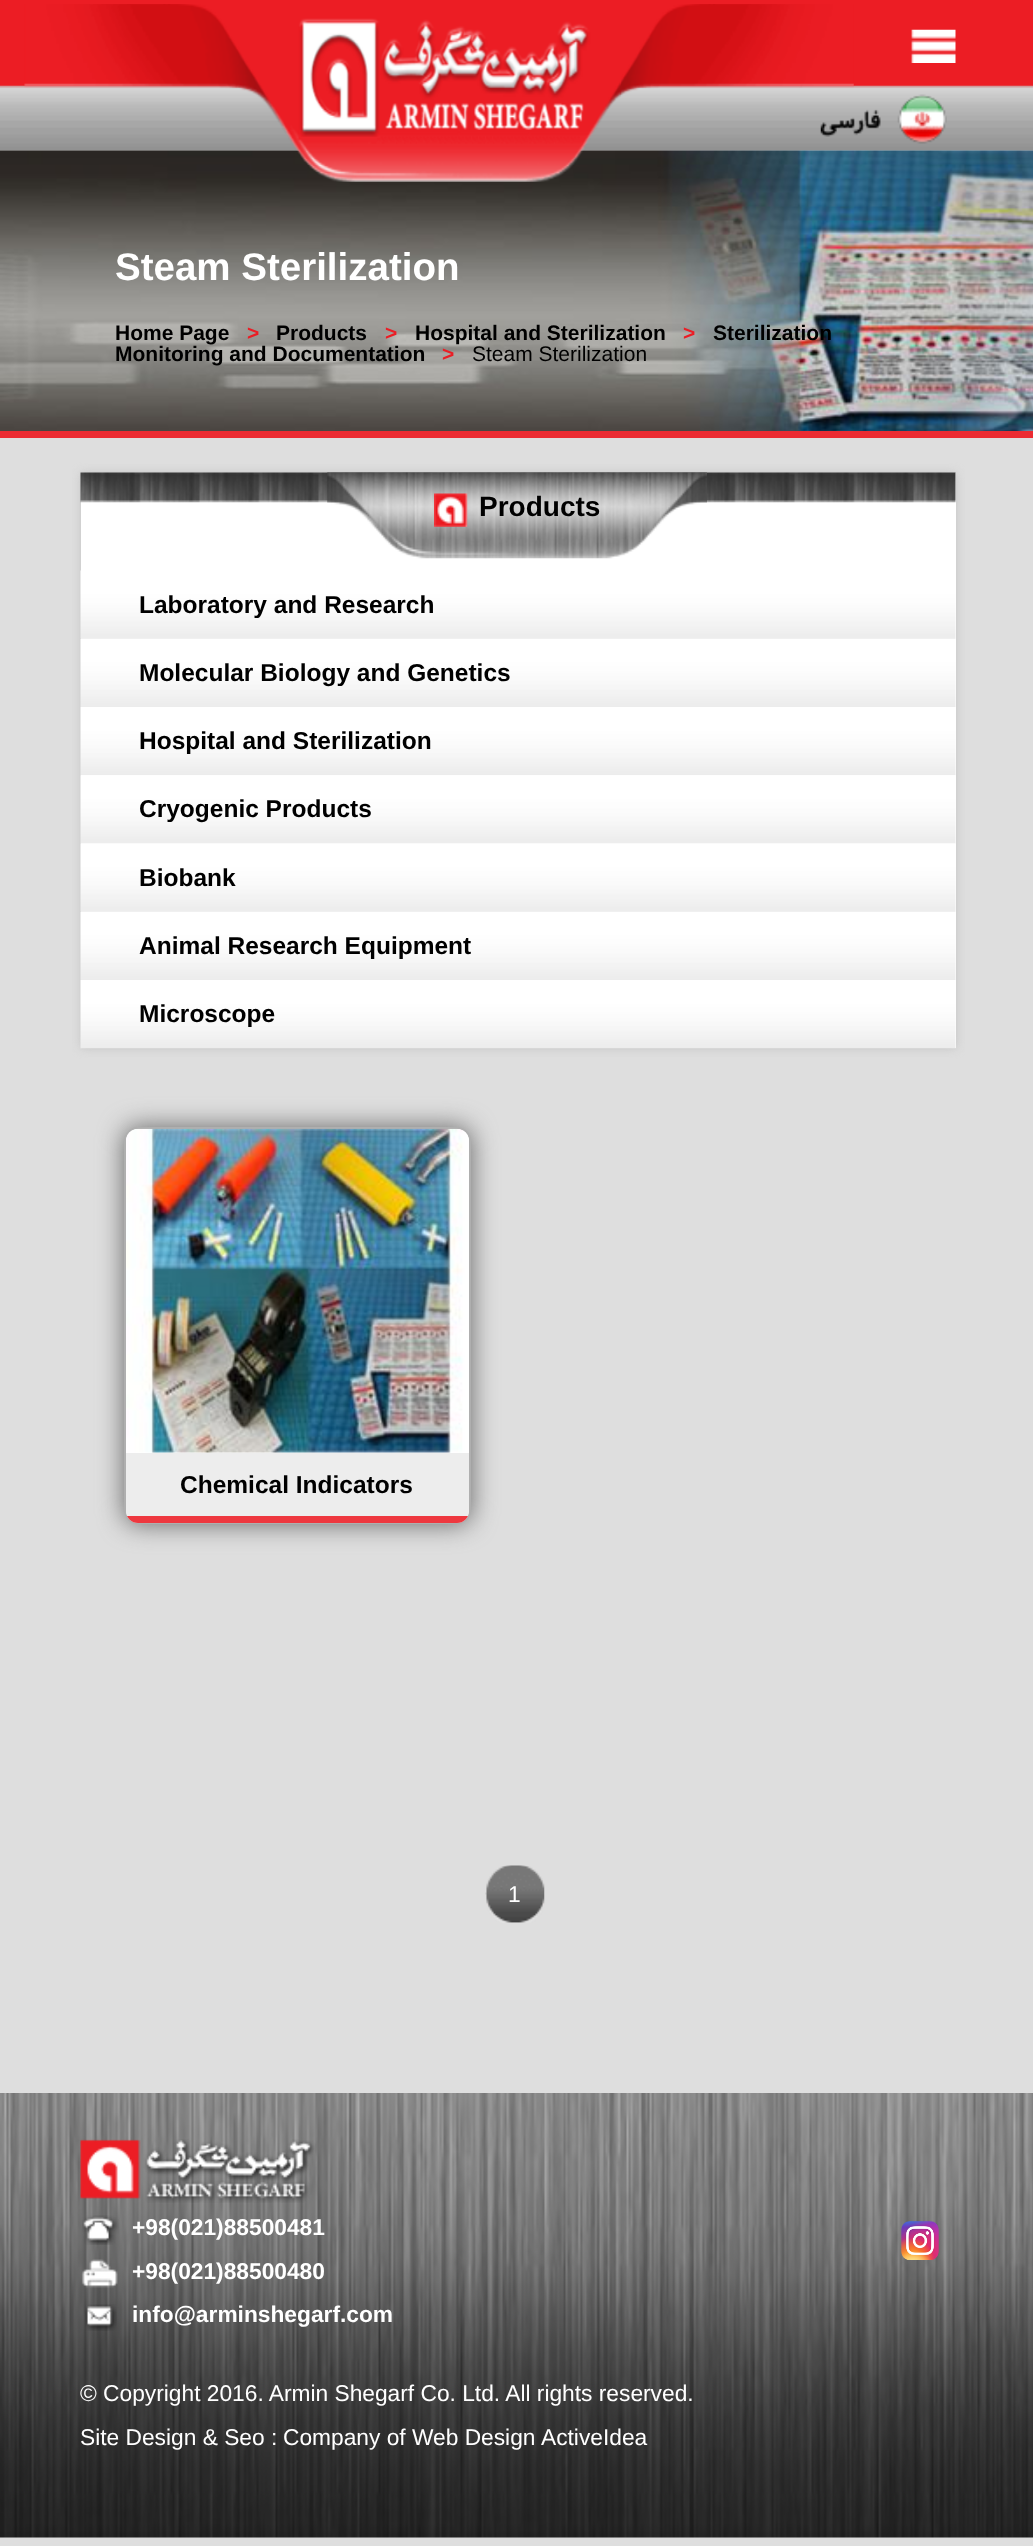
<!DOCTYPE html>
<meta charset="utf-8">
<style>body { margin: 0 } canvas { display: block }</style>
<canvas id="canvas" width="1033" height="2546"></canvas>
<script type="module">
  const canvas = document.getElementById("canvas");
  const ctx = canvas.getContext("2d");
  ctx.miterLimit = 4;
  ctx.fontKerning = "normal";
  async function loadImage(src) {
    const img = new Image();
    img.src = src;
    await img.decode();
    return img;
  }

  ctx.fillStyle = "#dedede";
  ctx.fillRect(0, 0, 1033, 2546);
  ctx.fillStyle = "#ec1d24";
  ctx.fillRect(0, 0, 1033, 88);
  ctx.drawImage(await loadImage("img3.png"), 0, 85, 1033, 66);
  ctx.drawImage(await loadImage("img4.png"), 820, 94, 127, 50);
  ctx.drawImage(await loadImage("img5.png"), 0, 150, 1033, 281);
  ctx.drawImage(await loadImage("img1.png"), 24, 4, 830, 178);
  ctx.drawImage(await loadImage("img2.png"), 911, 29, 45, 34);
  ctx.fillStyle = "#eb2b32";
  ctx.fillRect(0, 431, 1033, 7);
  ctx.font = "bold 38.5px Liberation Sans";
  ctx.fillStyle = "#ffffff";
  ctx.fillText("Steam Sterilization", 115, 280);
  ctx.font = "bold 21px Liberation Sans";
  ctx.fillStyle = "#000000";
  ctx.fillText("Home Page", 115, 340);
  ctx.fillStyle = "#eb1d25";
  ctx.fillText(">", 247, 340);
  ctx.fillStyle = "#000000";
  ctx.fillText("Products", 276, 340);
  ctx.fillStyle = "#eb1d25";
  ctx.fillText(">", 385, 340);
  ctx.fillStyle = "#000000";
  ctx.fillText("Hospital and Sterilization", 415, 340);
  ctx.fillStyle = "#eb1d25";
  ctx.fillText(">", 683, 340);
  ctx.fillStyle = "#000000";
  ctx.fillText("Sterilization", 713, 340);
  ctx.fillText("Monitoring and Documentation", 115, 361);
  ctx.fillStyle = "#eb1d25";
  ctx.fillText(">", 442, 361);
  ctx.font = "21px Liberation Sans";
  ctx.fillStyle = "#000000";
  ctx.fillText("Steam Sterilization", 472, 361);
  ctx.fillStyle = "#c2c2c2";
  ctx.filter = "blur(5px)";
  ctx.beginPath();
  ctx.rect(81, 473, 875, 575);
  ctx.fill();
  ctx.filter = "none";
  ctx.fillStyle = "#ffffff";
  ctx.fillRect(81, 473, 875, 575);
  ctx.drawImage(await loadImage("img6.png"), 80, 472, 876, 31);
  ctx.drawImage(await loadImage("img7.png"), 327, 472, 380, 87);
  ctx.drawImage(await loadImage("img8.png"), 434, 493, 34, 34);
  ctx.font = "bold 28px Liberation Sans";
  ctx.fillStyle = "#000000";
  ctx.fillText("Products", 479, 516);
  ctx.drawImage(await loadImage("img9.png"), 80, 570, 876, 69);
  ctx.font = "bold 24.5px Liberation Sans";
  ctx.fillText("Laboratory and Research", 139, 613);
  ctx.drawImage(await loadImage("img10.png"), 80, 639, 876, 68);
  ctx.fillText("Molecular Biology and Genetics", 139, 681);
  ctx.drawImage(await loadImage("img11.png"), 80, 707, 876, 69);
  ctx.fillText("Hospital and Sterilization", 139, 749);
  ctx.drawImage(await loadImage("img12.png"), 80, 775, 876, 69);
  ctx.fillText("Cryogenic Products", 139, 817);
  ctx.drawImage(await loadImage("img13.png"), 80, 843, 876, 69);
  ctx.fillText("Biobank", 139, 886);
  ctx.drawImage(await loadImage("img10.png"), 80, 912, 876, 68);
  ctx.fillText("Animal Research Equipment", 139, 954);
  ctx.drawImage(await loadImage("img14.png"), 80, 980, 876, 69);
  ctx.fillText("Microscope", 139, 1022);
  ctx.fillStyle = "#666666";
  ctx.filter = "blur(13px)";
  ctx.beginPath();
  ctx.roundRect(124, 1127, 347, 397, 14);
  ctx.fill();
  ctx.filter = "none";
  ctx.fillStyle = "#ffffff";
  ctx.beginPath();
  ctx.roundRect(125, 1128, 345, 395, 13);
  ctx.fill();
  ctx.strokeStyle = "#afafaf";
  ctx.lineWidth = 2;
  ctx.stroke();
  ctx.drawImage(await loadImage("img15.png"), 126, 1128, 343, 325);
  ctx.fillStyle = "#ededed";
  ctx.beginPath();
  ctx.roundRect(126, 1453, 343, 70, [0, 0, 12, 12]);
  ctx.fill();
  ctx.save();
  ctx.beginPath();
  ctx.roundRect(126, 1129, 343, 394, 12);
  ctx.clip();
  ctx.fillStyle = "#ee383f";
  ctx.fillRect(126, 1516, 343, 7);
  ctx.restore();
  ctx.fillStyle = "#000000";
  ctx.fillText("Chemical Indicators", 180, 1493);
  ctx.drawImage(await loadImage("img16.png"), 485, 1865, 60, 58);
  ctx.font = "22.75px Liberation Sans";
  ctx.fillStyle = "#ffffff";
  ctx.fillText("1", 508, 1902);
  ctx.drawImage(await loadImage("img17.png"), 0, 2093, 1033, 445);
  ctx.drawImage(await loadImage("img18.png"), 80, 2139, 236, 64);
  ctx.drawImage(await loadImage("img19.png"), 82, 2215, 37, 30);
  ctx.font = "bold 22.75px Liberation Sans";
  ctx.fillText("+98(021)88500481", 132, 2235);
  ctx.drawImage(await loadImage("img20.png"), 81, 2259, 37, 29);
  ctx.fillText("+98(021)88500480", 132, 2279);
  ctx.drawImage(await loadImage("img21.png"), 85, 2304, 32, 27);
  ctx.fillText("info@arminshegarf.com", 132, 2322);
  ctx.drawImage(await loadImage("img22.png"), 901, 2221, 38, 39);
  ctx.font = "22.75px Liberation Sans";
  ctx.fillText("© Copyright 2016. Armin Shegarf Co. Ltd. All rights reserved.", 80, 2401);
  ctx.fillText("Site Design & Seo :", 80, 2445);
  ctx.fillText("Company of Web Design", 283, 2445);
  ctx.fillText("ActiveIdea", 541, 2445);
</script>
